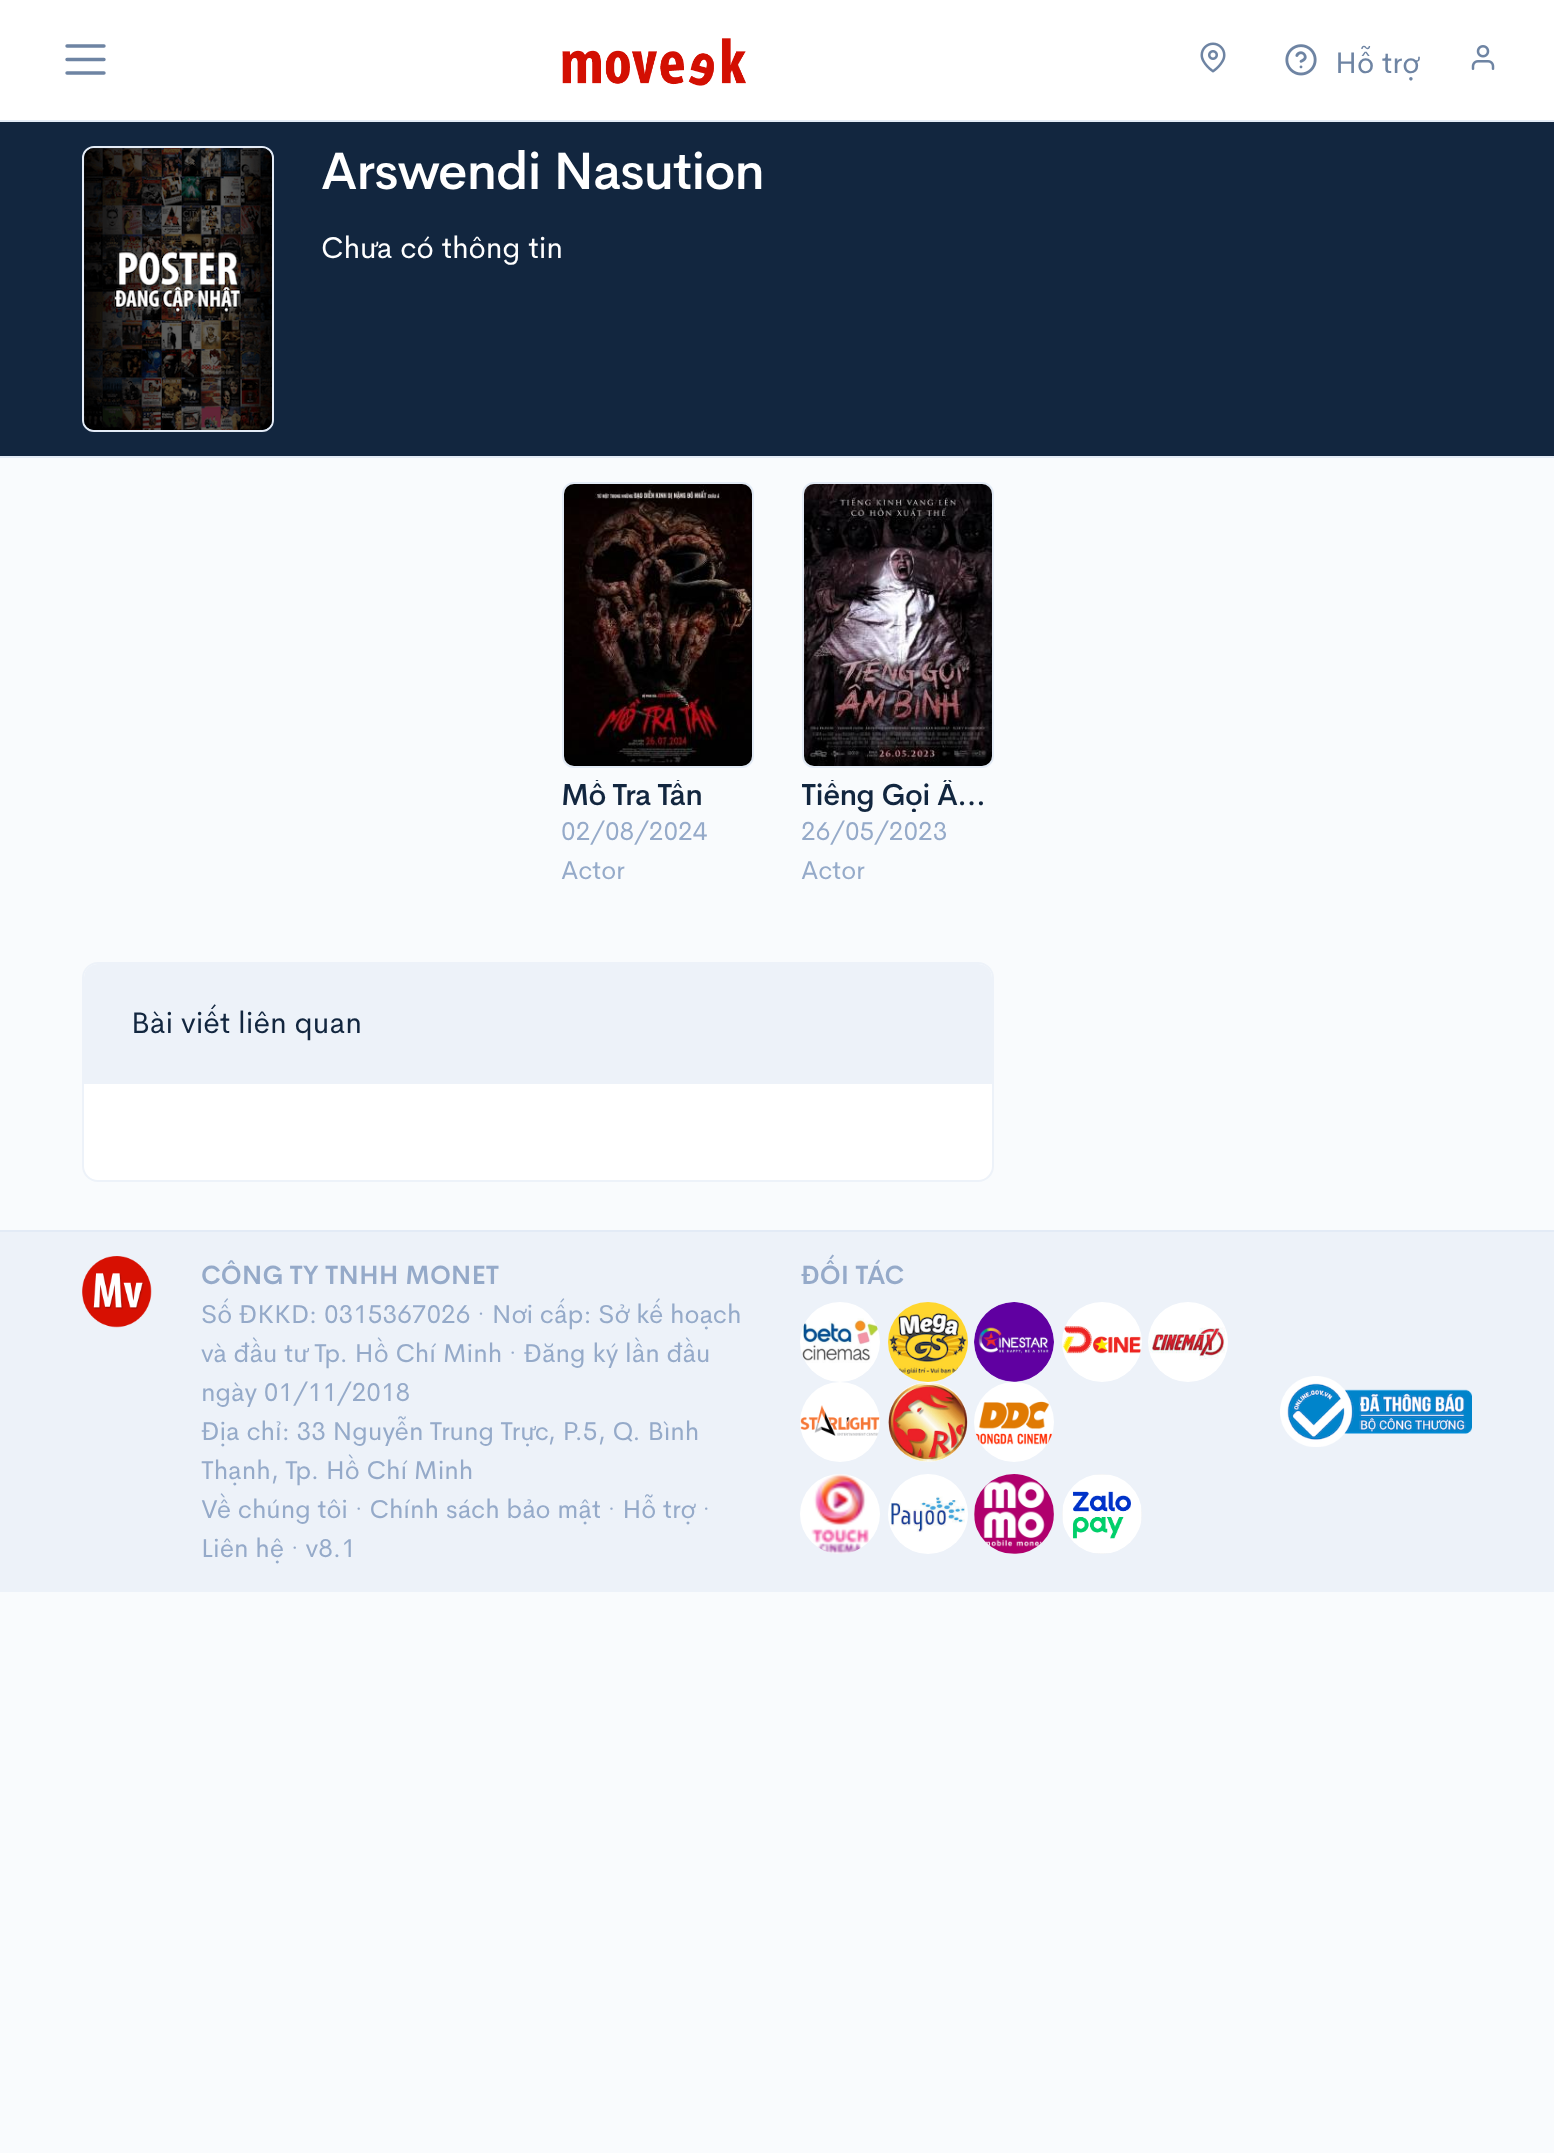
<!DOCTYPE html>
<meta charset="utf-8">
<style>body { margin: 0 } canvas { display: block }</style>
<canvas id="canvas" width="1554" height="2153"></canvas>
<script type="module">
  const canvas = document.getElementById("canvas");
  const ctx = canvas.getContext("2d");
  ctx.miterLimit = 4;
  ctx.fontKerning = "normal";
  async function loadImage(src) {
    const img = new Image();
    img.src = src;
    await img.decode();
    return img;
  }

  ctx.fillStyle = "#f9fbfd";
  ctx.fillRect(0, 0, 1554, 2153);
  ctx.fillStyle = "#ffffff";
  ctx.fillRect(0, 0, 1554, 120);
  ctx.fillStyle = "#e3ebf6";
  ctx.fillRect(0, 120, 1554, 2);
  ctx.beginPath();
  ctx.moveTo(67, 46);
  ctx.lineTo(104, 46);
  ctx.moveTo(67, 59.5);
  ctx.lineTo(104, 59.5);
  ctx.moveTo(67, 73);
  ctx.lineTo(104, 73);
  ctx.strokeStyle = "#6e84a3";
  ctx.lineWidth = 3.4;
  ctx.lineCap = "round";
  ctx.stroke();
  ctx.drawImage(await loadImage("img1.png"), 562, 38, 184, 48);
  ctx.drawImage(await loadImage("img2.png"), 1200, 42, 26, 31);
  ctx.drawImage(await loadImage("img3.png"), 1285, 44, 32, 32);
  ctx.font = "30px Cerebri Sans";
  ctx.fillStyle = "#6e84a3";
  ctx.fillText("Hỗ trợ", 1335, 73);
  ctx.drawImage(await loadImage("img4.png"), 1471, 45, 24, 25);
  ctx.fillStyle = "#12263f";
  ctx.fillRect(0, 122, 1554, 334);
  ctx.fillStyle = "#e3ebf6";
  ctx.fillRect(0, 456, 1554, 2);
  ctx.beginPath();
  ctx.roundRect(83, 147, 190, 284, 11);
  ctx.strokeStyle = "#e3ebf6";
  ctx.lineWidth = 2;
  ctx.stroke();
  ctx.drawImage(await loadImage("img5.png"), 84, 148, 188, 282);
  ctx.letterSpacing = "-1px";
  ctx.font = "500 52px Cerebri Sans";
  ctx.fillStyle = "#ffffff";
  ctx.fillText("Arswendi Nasution", 321, 189);
  ctx.letterSpacing = "0px";
  ctx.font = "30px Cerebri Sans";
  ctx.fillText("Chưa có thông tin", 321, 258);
  ctx.beginPath();
  ctx.roundRect(563, 483, 190, 284, 11);
  ctx.stroke();
  ctx.drawImage(await loadImage("img6.png"), 564, 484, 188, 282);
  ctx.save();
  ctx.beginPath();
  ctx.rect(562, 780, 192, 32);
  ctx.clip();
  ctx.letterSpacing = "-0.6px";
  ctx.font = "500 30px Cerebri Sans";
  ctx.fillStyle = "#12263f";
  ctx.fillText("Mồ Tra Tấn", 561, 805);
  ctx.restore();
  ctx.font = "26px Cerebri Sans";
  ctx.fillStyle = "#95aac9";
  ctx.fillText("02/08/2024", 561, 840);
  ctx.fillText("Actor", 561, 879);
  ctx.beginPath();
  ctx.roundRect(803, 483, 190, 284, 11);
  ctx.stroke();
  ctx.drawImage(await loadImage("img7.png"), 804, 484, 188, 282);
  ctx.save();
  ctx.beginPath();
  ctx.rect(802, 780, 192, 32);
  ctx.clip();
  ctx.letterSpacing = "-0.6px";
  ctx.font = "500 30px Cerebri Sans";
  ctx.fillStyle = "#12263f";
  ctx.fillText("Tiếng Gọi Â…", 801, 805);
  ctx.restore();
  ctx.fillText("26/05/2023", 801, 840);
  ctx.fillText("Actor", 801, 879);
  ctx.fillStyle = "#ffffff";
  ctx.beginPath();
  ctx.roundRect(83, 963, 910, 218, 15);
  ctx.fill();
  ctx.strokeStyle = "#edf2f9";
  ctx.stroke();
  ctx.fillStyle = "#edf2f9";
  ctx.beginPath();
  ctx.roundRect(84, 964, 908, 120, [14, 14, 0, 0]);
  ctx.fill();
  ctx.font = "30px Cerebri Sans";
  ctx.fillStyle = "#12263f";
  ctx.fillText("Bài viết liên quan", 131, 1033);
  ctx.fillStyle = "#edf2f9";
  ctx.fillRect(0, 1232, 1554, 360);
  ctx.fillStyle = "#e3ebf6";
  ctx.fillRect(0, 1230, 1554, 2);
  ctx.drawImage(await loadImage("img8.png"), 82, 1256, 70, 72);
  ctx.font = "600 26px Cerebri Sans";
  ctx.fillStyle = "#95aac9";
  ctx.fillText("CÔNG TY TNHH MONET", 201, 1284);
  ctx.font = "26px Cerebri Sans";
  ctx.fillText("Số ĐKKD: 0315367026 · Nơi cấp: Sở kế hoạch", 201, 1323);
  ctx.fillText("và đầu tư Tp. Hồ Chí Minh · Đăng ký lần đầu", 201, 1362);
  ctx.fillText("ngày 01/11/2018", 201, 1401);
  ctx.fillText("Địa chỉ: 33 Nguyễn Trung Trực, P.5, Q. Bình", 201, 1440);
  ctx.fillText("Thạnh, Tp. Hồ Chí Minh", 201, 1479);
  ctx.fillText("Về chúng tôi · Chính sách bảo mật · Hỗ trợ ·", 201, 1518);
  ctx.fillText("Liên hệ · v8.1", 201, 1557);
  ctx.font = "600 26px Cerebri Sans";
  ctx.fillText("ĐỐI TÁC", 801, 1284);
  ctx.drawImage(await loadImage("img9.png"), 800, 1302, 80, 80);
  ctx.drawImage(await loadImage("img10.png"), 888, 1302, 80, 80);
  ctx.drawImage(await loadImage("img11.png"), 974, 1302, 80, 80);
  ctx.drawImage(await loadImage("img12.png"), 1062, 1302, 80, 80);
  ctx.drawImage(await loadImage("img13.png"), 1148, 1302, 80, 80);
  ctx.fillStyle = "#ffffff";
  ctx.beginPath();
  ctx.arc(840, 1422, 40, 0, Math.PI * 2);
  ctx.fill();
  ctx.drawImage(await loadImage("img14.png"), 800, 1405, 80, 31);
  ctx.beginPath();
  ctx.arc(928, 1422, 40, 0, Math.PI * 2);
  ctx.fill();
  ctx.drawImage(await loadImage("img15.png"), 888, 1383, 80, 79);
  ctx.beginPath();
  ctx.arc(1014, 1422, 40, 0, Math.PI * 2);
  ctx.fill();
  ctx.drawImage(await loadImage("img16.png"), 975, 1401, 77, 44);
  ctx.beginPath();
  ctx.arc(840, 1514, 40, 0, Math.PI * 2);
  ctx.fill();
  ctx.drawImage(await loadImage("img17.png"), 811, 1474, 58, 80);
  ctx.drawImage(await loadImage("img18.png"), 888, 1474, 80, 80);
  ctx.drawImage(await loadImage("img19.png"), 974, 1474, 80, 80);
  ctx.drawImage(await loadImage("img20.png"), 1062, 1474, 80, 80);
  ctx.drawImage(await loadImage("img21.png"), 1280, 1376, 192, 71);
</script>
